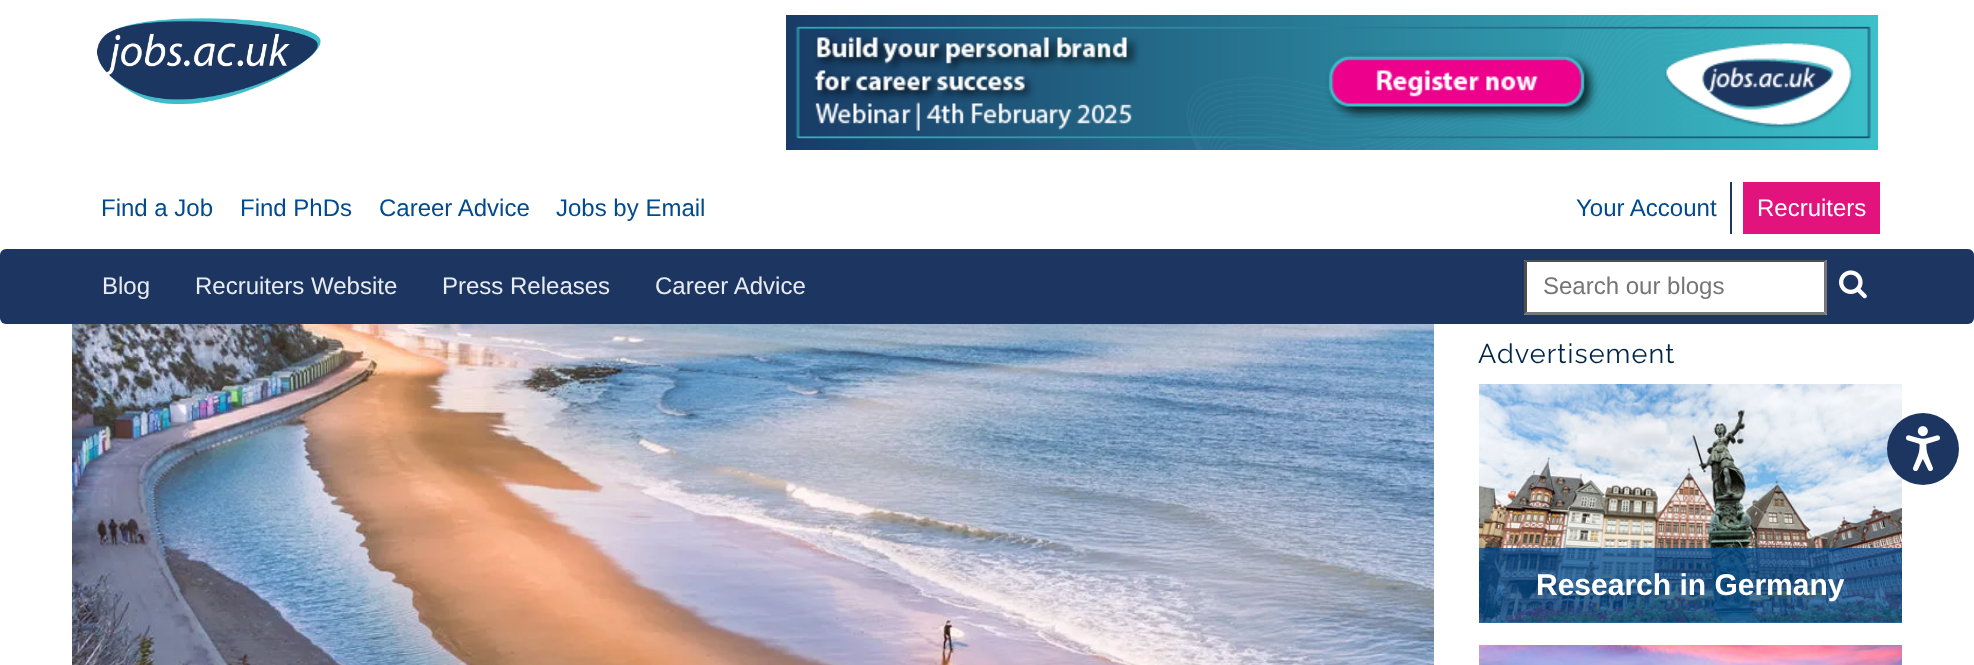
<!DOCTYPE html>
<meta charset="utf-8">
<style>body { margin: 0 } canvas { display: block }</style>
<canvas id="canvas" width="1974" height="665"></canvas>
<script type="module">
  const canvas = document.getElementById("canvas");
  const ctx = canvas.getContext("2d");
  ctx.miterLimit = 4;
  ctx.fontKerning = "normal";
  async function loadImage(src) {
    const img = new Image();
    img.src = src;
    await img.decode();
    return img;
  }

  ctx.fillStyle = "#ffffff";
  ctx.fillRect(0, 0, 1974, 665);
  ctx.drawImage(await loadImage("img1.png"), 97, 18, 224, 86);
  ctx.drawImage(await loadImage("img2.png"), 786, 15, 1092, 135);
  ctx.font = "24px Liberation Sans";
  ctx.fillStyle = "#004a8f";
  ctx.fillText("Find a Job", 101, 216);
  ctx.fillText("Find PhDs", 240, 216);
  ctx.fillText("Career Advice", 379, 216);
  ctx.fillText("Jobs by Email", 556, 216);
  ctx.fillStyle = "#1d3661";
  ctx.fillRect(1730, 182, 2, 52);
  ctx.fillStyle = "#004a8f";
  ctx.fillText("Your Account", 1576, 216);
  ctx.fillStyle = "#e3137e";
  ctx.fillRect(1743, 182, 137, 52);
  ctx.fillStyle = "#ffffff";
  ctx.fillText("Recruiters", 1757, 216);
  ctx.fillStyle = "#1d3661";
  ctx.beginPath();
  ctx.roundRect(0, 249, 1974, 75, 6);
  ctx.fill();
  ctx.fillStyle = "#e8ebef";
  ctx.fillText("Blog", 102, 294);
  ctx.fillText("Recruiters Website", 195, 294);
  ctx.fillText("Press Releases", 442, 294);
  ctx.fillText("Career Advice", 655, 294);
  ctx.fillStyle = "#ffffff";
  ctx.fillRect(1524, 260, 303, 55);
  ctx.fillStyle = "#4f4f4f";
  ctx.beginPath();
  ctx.moveTo(1524, 260);
  ctx.lineTo(1827, 260);
  ctx.lineTo(1824, 262);
  ctx.lineTo(1527, 262);
  ctx.closePath();
  ctx.fill();
  ctx.fillStyle = "#767676";
  ctx.beginPath();
  ctx.moveTo(1827, 260);
  ctx.lineTo(1827, 315);
  ctx.lineTo(1824, 312);
  ctx.lineTo(1824, 262);
  ctx.closePath();
  ctx.fill();
  ctx.beginPath();
  ctx.moveTo(1827, 315);
  ctx.lineTo(1524, 315);
  ctx.lineTo(1527, 312);
  ctx.lineTo(1824, 312);
  ctx.closePath();
  ctx.fill();
  ctx.fillStyle = "#4f4f4f";
  ctx.beginPath();
  ctx.moveTo(1524, 315);
  ctx.lineTo(1524, 260);
  ctx.lineTo(1527, 262);
  ctx.lineTo(1527, 312);
  ctx.closePath();
  ctx.fill();
  ctx.fillStyle = "#757575";
  ctx.fillText("Search our blogs", 1543, 294);
  ctx.drawImage(await loadImage("img3.png"), 1839, 270, 28, 29);
  ctx.drawImage(await loadImage("img4.png"), 72, 324, 1362, 341);
  ctx.letterSpacing = "1.1px";
  ctx.font = "100 27px Raleway";
  ctx.fillStyle = "#002547";
  ctx.fillText("Advertisement", 1478, 363);
  ctx.drawImage(await loadImage("img5.png"), 1479, 384, 423, 239);
  ctx.fillStyle = "rgba(0, 74, 143, 0.75)";
  ctx.fillRect(1479, 548, 423, 75);
  ctx.letterSpacing = "0px";
  ctx.font = "bold 30px Liberation Sans";
  ctx.fillStyle = "#ffffff";
  ctx.fillText("Research in Germany", 1536, 595);
  ctx.drawImage(await loadImage("img6.png"), 1479, 645, 423, 20);
  ctx.fillStyle = "#1d3661";
  ctx.beginPath();
  ctx.arc(1923, 449, 36, 0, Math.PI * 2);
  ctx.fill();
  ctx.drawImage(await loadImage("img7.png"), 1906, 426, 34, 45);
</script>
